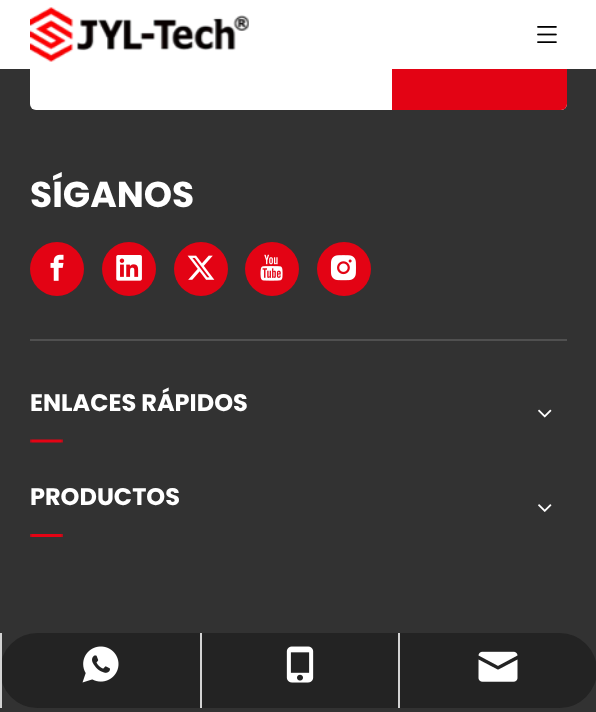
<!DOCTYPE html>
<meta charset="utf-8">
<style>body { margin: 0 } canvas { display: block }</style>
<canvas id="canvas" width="596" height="712"></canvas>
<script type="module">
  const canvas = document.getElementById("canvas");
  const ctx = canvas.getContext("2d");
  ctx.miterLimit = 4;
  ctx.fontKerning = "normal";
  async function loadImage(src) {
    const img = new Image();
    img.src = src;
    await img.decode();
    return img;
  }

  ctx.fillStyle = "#323232";
  ctx.fillRect(0, 0, 596, 712);
  ctx.fillStyle = "#ffffff";
  ctx.beginPath();
  ctx.roundRect(30, 26, 537, 84, 6);
  ctx.fill();
  ctx.fillStyle = "#e30314";
  ctx.beginPath();
  ctx.roundRect(392, 26, 175, 84, [0, 6, 6, 0]);
  ctx.fill();
  ctx.fillStyle = "#ffffff";
  ctx.fillRect(0, 0, 596, 69);
  ctx.drawImage(await loadImage("img1.png"), 30, 7, 219, 55);
  ctx.drawImage(await loadImage("img2.png"), 537, 26, 20, 17);
  ctx.font = "bold 36px Poppins";
  ctx.fillText("SÍGANOS", 30, 207);
  ctx.fillStyle = "#e30314";
  ctx.beginPath();
  ctx.arc(57, 269, 27, 0, Math.PI * 2);
  ctx.fill();
  ctx.drawImage(await loadImage("img3.png"), 50, 254, 14, 27);
  ctx.beginPath();
  ctx.arc(129, 269, 27, 0, Math.PI * 2);
  ctx.fill();
  ctx.drawImage(await loadImage("img4.png"), 116, 255, 26, 26);
  ctx.beginPath();
  ctx.arc(201, 269, 27, 0, Math.PI * 2);
  ctx.fill();
  ctx.drawImage(await loadImage("img5.png"), 187, 255, 28, 25);
  ctx.beginPath();
  ctx.arc(272, 269, 27, 0, Math.PI * 2);
  ctx.fill();
  ctx.drawImage(await loadImage("img6.png"), 260, 254, 23, 27);
  ctx.beginPath();
  ctx.arc(344, 269, 27, 0, Math.PI * 2);
  ctx.fill();
  ctx.drawImage(await loadImage("img7.png"), 330, 255, 26, 26);
  ctx.fillStyle = "#505050";
  ctx.fillRect(30, 339, 537, 2);
  ctx.drawImage(await loadImage("img8.png"), 30, 439, 33, 4);
  ctx.font = "bold 24px Poppins";
  ctx.fillStyle = "#ffffff";
  ctx.fillText("ENLACES RÁPIDOS", 30, 411);
  ctx.drawImage(await loadImage("img9.png"), 538, 409, 14, 9);
  ctx.drawImage(await loadImage("img10.png"), 30, 534, 33, 3);
  ctx.fillText("PRODUCTOS", 30, 505);
  ctx.drawImage(await loadImage("img11.png"), 538, 504, 14, 8);
  ctx.fillStyle = "#232323";
  ctx.beginPath();
  ctx.roundRect(0, 633, 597, 75, 37.5);
  ctx.fill();
  ctx.fillStyle = "#d3d3d3";
  ctx.fillRect(0, 633, 2, 75);
  ctx.drawImage(await loadImage("img12.png"), 82, 646, 37, 37);
  ctx.fillRect(200, 633, 2, 75);
  ctx.drawImage(await loadImage("img13.png"), 286, 646, 28, 37);
  ctx.fillRect(398, 633, 2, 75);
  ctx.drawImage(await loadImage("img14.png"), 478, 651, 40, 31);
</script>
